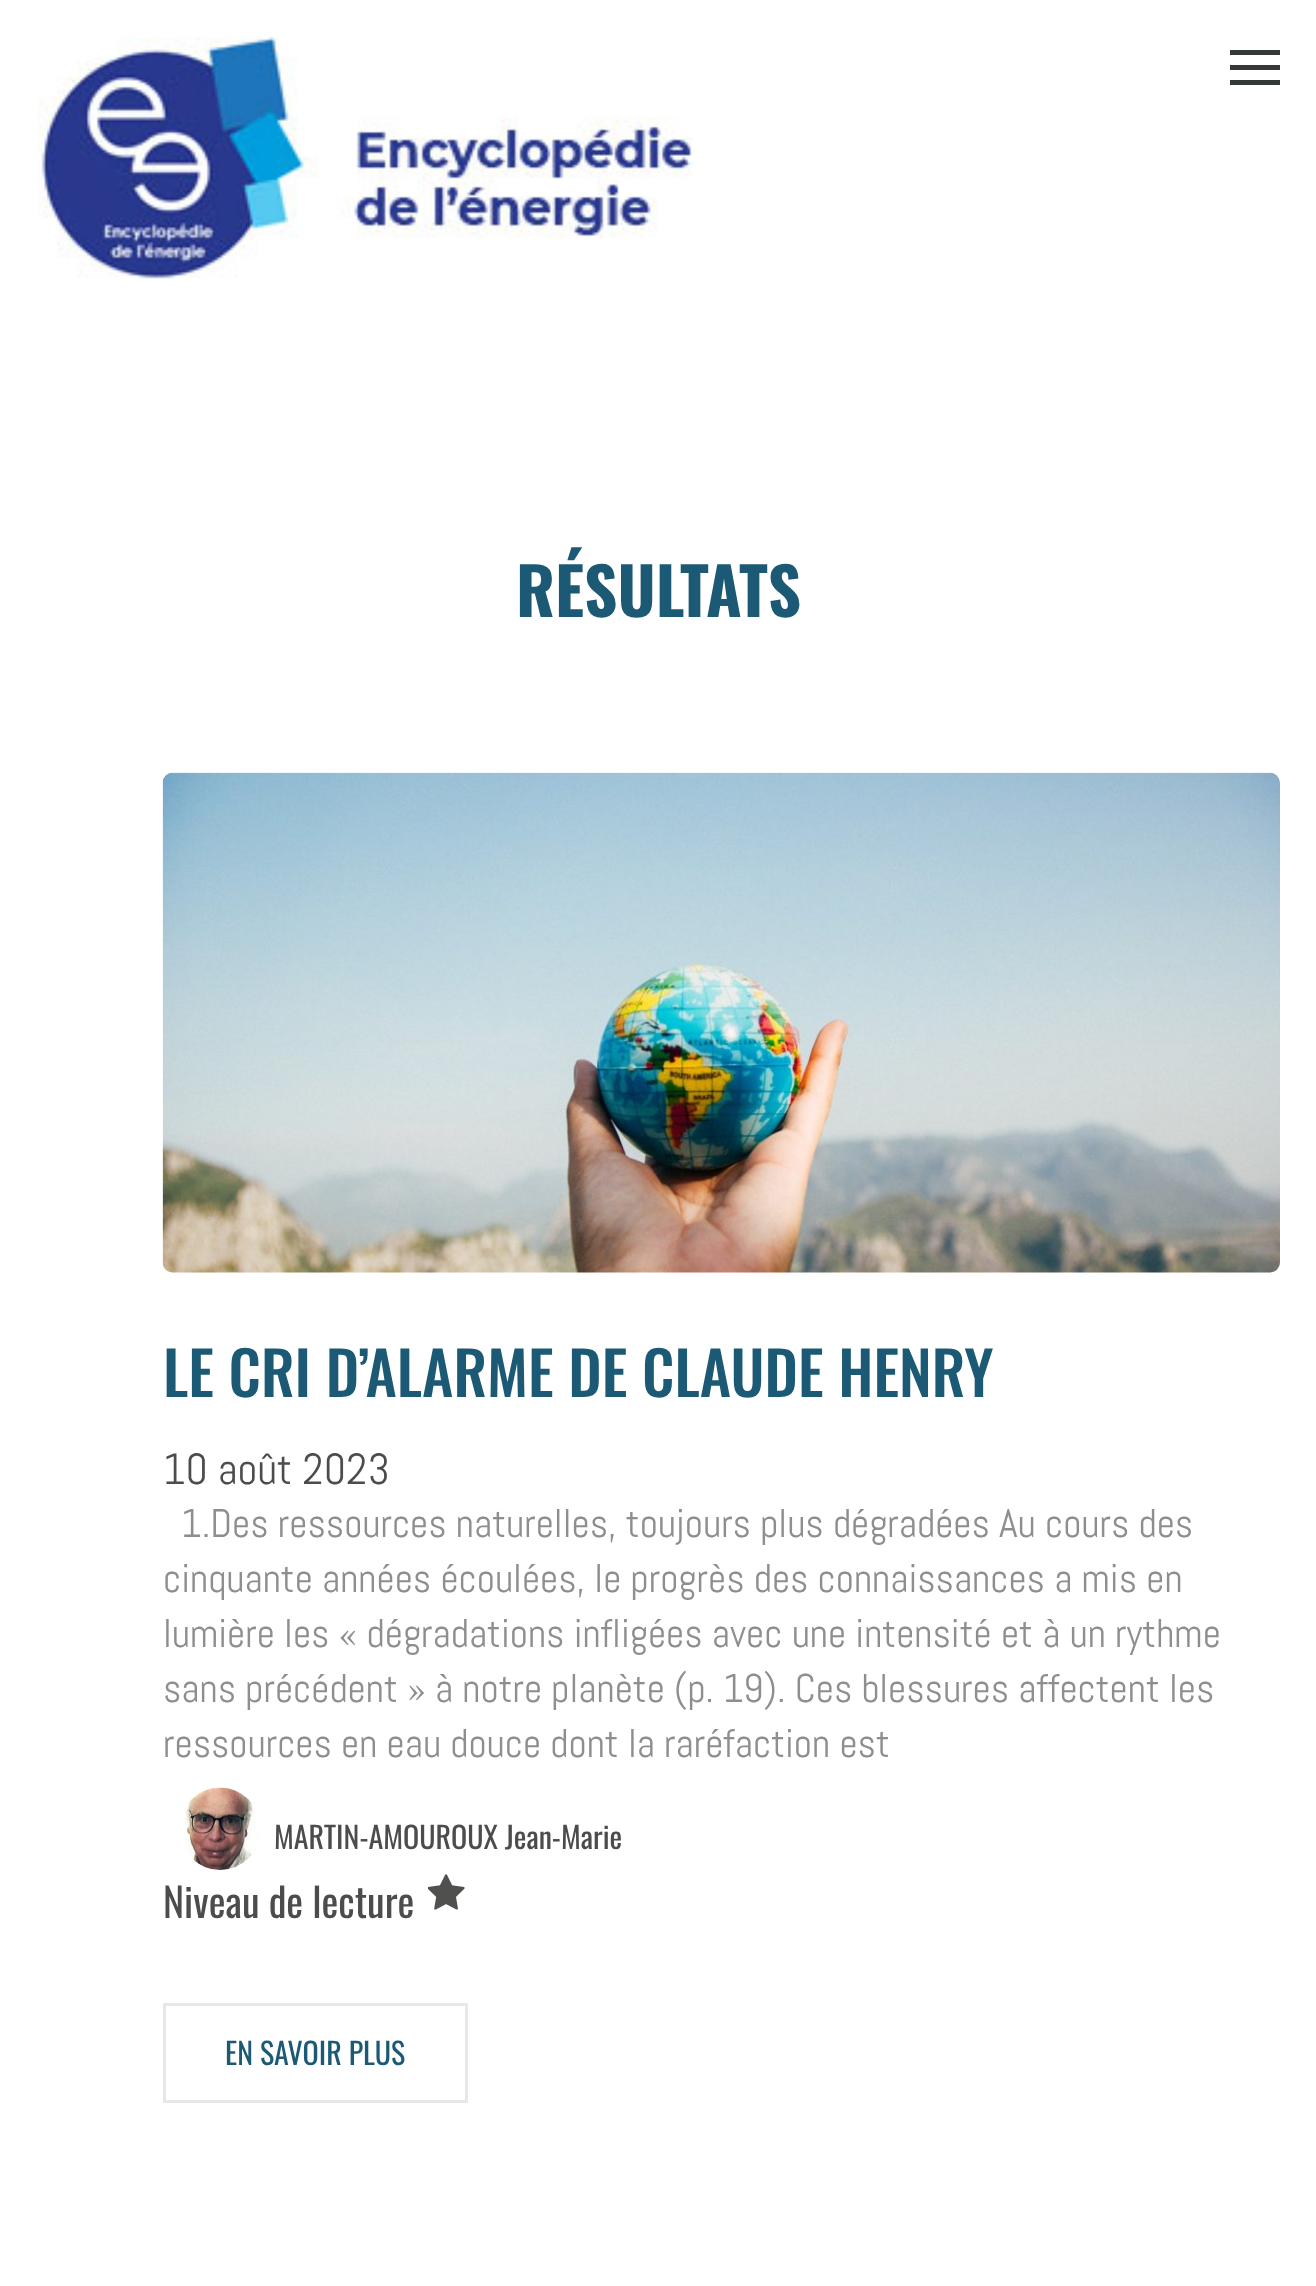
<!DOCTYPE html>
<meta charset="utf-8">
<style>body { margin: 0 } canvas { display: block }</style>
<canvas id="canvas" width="1316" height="2286"></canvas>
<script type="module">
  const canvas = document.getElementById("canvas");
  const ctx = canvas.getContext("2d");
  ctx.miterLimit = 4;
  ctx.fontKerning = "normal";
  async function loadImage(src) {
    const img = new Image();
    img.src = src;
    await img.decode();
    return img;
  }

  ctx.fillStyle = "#ffffff";
  ctx.fillRect(0, 0, 1316, 2286);
  ctx.drawImage(await loadImage("img1.png"), 37, 37, 656, 242);
  ctx.fillStyle = "#343838";
  ctx.fillRect(1230, 50, 50, 5);
  ctx.fillRect(1230, 65, 50, 5);
  ctx.fillRect(1230, 80, 50, 5);
  ctx.font = "bold 65px Oswald";
  ctx.fillStyle = "#1c5975";
  ctx.fillText("RÉSULTATS", 516, 617);
  ctx.drawImage(await loadImage("img2.png"), 162, 772, 1118, 501);
  ctx.font = "500 60px Oswald";
  ctx.fillText("LE CRI D’ALARME DE CLAUDE HENRY", 163, 1397);
  ctx.font = "43.5px Abel";
  ctx.fillStyle = "#4c4c4c";
  ctx.fillText("10 août 2023", 163, 1484);
  ctx.font = "40px Abel";
  ctx.fillStyle = "#8e8e8e";
  ctx.fillText("1.Des ressources naturelles, toujours plus dégradées Au cours des", 181, 1537);
  ctx.fillText("cinquante années écoulées, le progrès des connaissances a mis en", 163, 1592);
  ctx.fillText("lumière les « dégradations infligées avec une intensité et à un rythme", 163, 1647);
  ctx.fillText("sans précédent » à notre planète (p. 19). Ces blessures affectent les", 163, 1702);
  ctx.fillText("ressources en eau douce dont la raréfaction est", 163, 1757);
  ctx.drawImage(await loadImage("img3.png"), 183, 1787, 76, 83);
  ctx.font = "30px Oswald";
  ctx.fillStyle = "#4c4c4c";
  ctx.fillText("MARTIN-AMOUROUX Jean-Marie", 274, 1849);
  ctx.font = "40px Oswald";
  ctx.fillText("Niveau de lecture", 163, 1918);
  ctx.drawImage(await loadImage("img4.png"), 428, 1874, 37, 36);
  ctx.strokeStyle = "#e8e8e8";
  ctx.lineWidth = 3;
  ctx.strokeRect(164.5, 2004.5, 302, 97);
  ctx.font = "30px Oswald";
  ctx.fillStyle = "#1c5975";
  ctx.fillText("EN SAVOIR PLUS", 225, 2065);
</script>
